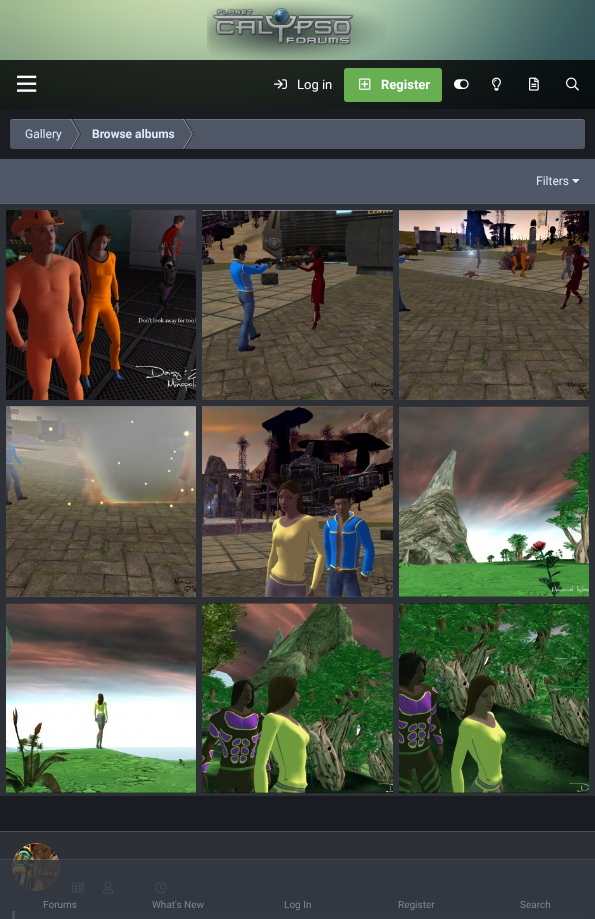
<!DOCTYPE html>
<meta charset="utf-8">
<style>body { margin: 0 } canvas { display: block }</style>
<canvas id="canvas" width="595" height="919"></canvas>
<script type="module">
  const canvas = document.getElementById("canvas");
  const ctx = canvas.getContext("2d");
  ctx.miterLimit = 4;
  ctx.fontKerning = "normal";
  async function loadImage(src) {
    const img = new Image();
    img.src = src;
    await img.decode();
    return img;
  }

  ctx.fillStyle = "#ffffff";
  ctx.fillRect(0, 0, 595, 919);
  ctx.drawImage(await loadImage("img1.png"), 0, 0, 595, 109);
  ctx.drawImage(await loadImage("img2.png"), 207, 1, 179, 59);
  ctx.fillStyle = "rgba(0, 0, 0, 0.06)";
  ctx.filter = "blur(10px)";
  ctx.beginPath();
  ctx.rect(0, 109, 595, 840);
  ctx.fill();
  ctx.filter = "none";
  ctx.fillStyle = "rgba(0, 0, 0, 0.8)";
  ctx.fillRect(0, 60, 595, 49);
  ctx.drawImage(await loadImage("img3.png"), 17, 75, 20, 17);
  ctx.drawImage(await loadImage("img4.png"), 274, 79, 13, 10);
  ctx.font = "13px Roboto";
  ctx.fillStyle = "#ffffff";
  ctx.fillText("Log in", 297, 89);
  ctx.fillStyle = "#67af51";
  ctx.beginPath();
  ctx.roundRect(344, 68, 98, 34, 3);
  ctx.fill();
  ctx.drawImage(await loadImage("img5.png"), 359, 78, 12, 12);
  ctx.font = "bold 13px Roboto";
  ctx.fillStyle = "#ffffff";
  ctx.fillText("Register", 381, 89);
  ctx.drawImage(await loadImage("img6.png"), 454, 79, 15, 10);
  ctx.drawImage(await loadImage("img7.png"), 492, 77, 9, 14);
  ctx.drawImage(await loadImage("img8.png"), 529, 77, 10, 14);
  ctx.drawImage(await loadImage("img9.png"), 566, 77, 13, 14);
  ctx.fillStyle = "#1b1c21";
  ctx.fillRect(0, 109, 595, 722);
  ctx.fillStyle = "#4f5766";
  ctx.beginPath();
  ctx.roundRect(10, 119, 575, 30, 3);
  ctx.fill();
  ctx.fillStyle = "rgba(255, 255, 255, 0.15)";
  ctx.beginPath();
  ctx.moveTo(13, 120);
  ctx.lineTo(582, 120);
  ctx.bezierCurveTo(584, 120, 585, 121, 585, 123);
  ctx.lineTo(585, 122);
  ctx.bezierCurveTo(585, 120, 584, 119, 582, 119);
  ctx.lineTo(13, 119);
  ctx.bezierCurveTo(11, 119, 10, 120, 10, 122);
  ctx.lineTo(10, 123);
  ctx.bezierCurveTo(10, 121, 11, 120, 13, 120);
  ctx.closePath();
  ctx.fill();
  ctx.font = "12px Roboto";
  ctx.fillStyle = "#e1e8f8";
  ctx.fillText("Gallery", 25, 138);
  ctx.fillStyle = "rgba(255, 255, 255, 0.38)";
  ctx.beginPath();
  ctx.moveTo(70.5, 119);
  ctx.lineTo(71.5, 119);
  ctx.lineTo(80, 134);
  ctx.lineTo(79, 134);
  ctx.closePath();
  ctx.fill();
  ctx.fillStyle = "rgba(34, 38, 45, 0.8)";
  ctx.beginPath();
  ctx.moveTo(71.5, 119);
  ctx.lineTo(72.5, 119);
  ctx.lineTo(81, 134);
  ctx.lineTo(80, 134);
  ctx.closePath();
  ctx.fill();
  ctx.fillStyle = "#9297a0";
  ctx.beginPath();
  ctx.moveTo(79, 134);
  ctx.lineTo(80, 134);
  ctx.lineTo(71.5, 149);
  ctx.lineTo(70.5, 149);
  ctx.closePath();
  ctx.fill();
  ctx.fillStyle = "rgba(34, 38, 45, 0.8)";
  ctx.beginPath();
  ctx.moveTo(80, 134);
  ctx.lineTo(81, 134);
  ctx.lineTo(72.5, 149);
  ctx.lineTo(71.5, 149);
  ctx.closePath();
  ctx.fill();
  ctx.font = "bold 12px Roboto";
  ctx.fillStyle = "#e1e8f8";
  ctx.fillText("Browse albums", 92, 138);
  ctx.fillStyle = "rgba(255, 255, 255, 0.38)";
  ctx.beginPath();
  ctx.moveTo(183, 119);
  ctx.lineTo(184, 119);
  ctx.lineTo(193, 134);
  ctx.lineTo(192, 134);
  ctx.closePath();
  ctx.fill();
  ctx.fillStyle = "rgba(34, 38, 45, 0.8)";
  ctx.beginPath();
  ctx.moveTo(184, 119);
  ctx.lineTo(185, 119);
  ctx.lineTo(194, 134);
  ctx.lineTo(193, 134);
  ctx.closePath();
  ctx.fill();
  ctx.fillStyle = "#9297a0";
  ctx.beginPath();
  ctx.moveTo(192, 134);
  ctx.lineTo(193, 134);
  ctx.lineTo(184, 149);
  ctx.lineTo(183, 149);
  ctx.closePath();
  ctx.fill();
  ctx.fillStyle = "rgba(34, 38, 45, 0.8)";
  ctx.beginPath();
  ctx.moveTo(193, 134);
  ctx.lineTo(194, 134);
  ctx.lineTo(185, 149);
  ctx.lineTo(184, 149);
  ctx.closePath();
  ctx.fill();
  ctx.fillStyle = "#2d3037";
  ctx.fillRect(0, 204, 595, 592);
  ctx.fillStyle = "#4f5766";
  ctx.fillRect(0, 159, 595, 44);
  ctx.fillStyle = "#586171";
  ctx.fillRect(0, 203, 595, 1);
  ctx.font = "12px Roboto";
  ctx.fillStyle = "#e1e8f8";
  ctx.fillText("Filters", 536, 185);
  ctx.drawImage(await loadImage("img10.png"), 572, 179, 8, 4);
  ctx.drawImage(await loadImage("img11.png"), 6, 210, 190, 190);
  ctx.drawImage(await loadImage("img12.png"), 202, 210, 191, 190);
  ctx.drawImage(await loadImage("img13.png"), 399, 210, 190, 190);
  ctx.drawImage(await loadImage("img14.png"), 6, 406, 190, 191);
  ctx.drawImage(await loadImage("img15.png"), 202, 406, 191, 191);
  ctx.drawImage(await loadImage("img16.png"), 399, 406, 190, 191);
  ctx.drawImage(await loadImage("img17.png"), 6, 603, 190, 190);
  ctx.drawImage(await loadImage("img18.png"), 202, 603, 191, 190);
  ctx.drawImage(await loadImage("img19.png"), 399, 603, 190, 190);
  ctx.fillStyle = "#2d3037";
  ctx.fillRect(0, 832, 595, 87);
  ctx.fillStyle = "#4d4f55";
  ctx.fillRect(0, 831, 595, 1);
  ctx.drawImage(await loadImage("img20.png"), 12, 843, 48, 48);
  ctx.beginPath();
  ctx.arc(36, 867, 23.5, 0, Math.PI * 2);
  ctx.strokeStyle = "rgba(218, 225, 243, 0.15)";
  ctx.stroke();
  ctx.drawImage(await loadImage("img21.png"), 72, 882, 12, 11);
  ctx.drawImage(await loadImage("img22.png"), 103, 881, 11, 13);
  ctx.drawImage(await loadImage("img23.png"), 155, 881, 12, 13);
  ctx.fillStyle = "#353941";
  ctx.beginPath();
  ctx.roundRect(12, 909, 571, 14, 4);
  ctx.fill();
  ctx.fillStyle = "#abb4c8";
  ctx.fillRect(12, 911, 3, 8);
  ctx.fillStyle = "rgba(255, 255, 255, 0.1)";
  ctx.fillRect(0, 859, 595, 1);
  ctx.fillStyle = "rgba(53, 57, 65, 0.8)";
  ctx.fillRect(0, 860, 595, 59);
  ctx.font = "10px Roboto";
  ctx.fillStyle = "#7c869d";
  ctx.fillText("Forums", 43, 908);
  ctx.fillText("What's New", 152, 908);
  ctx.fillText("Log In", 284, 908);
  ctx.fillText("Register", 398, 908);
  ctx.fillText("Search", 520, 908);
</script>
